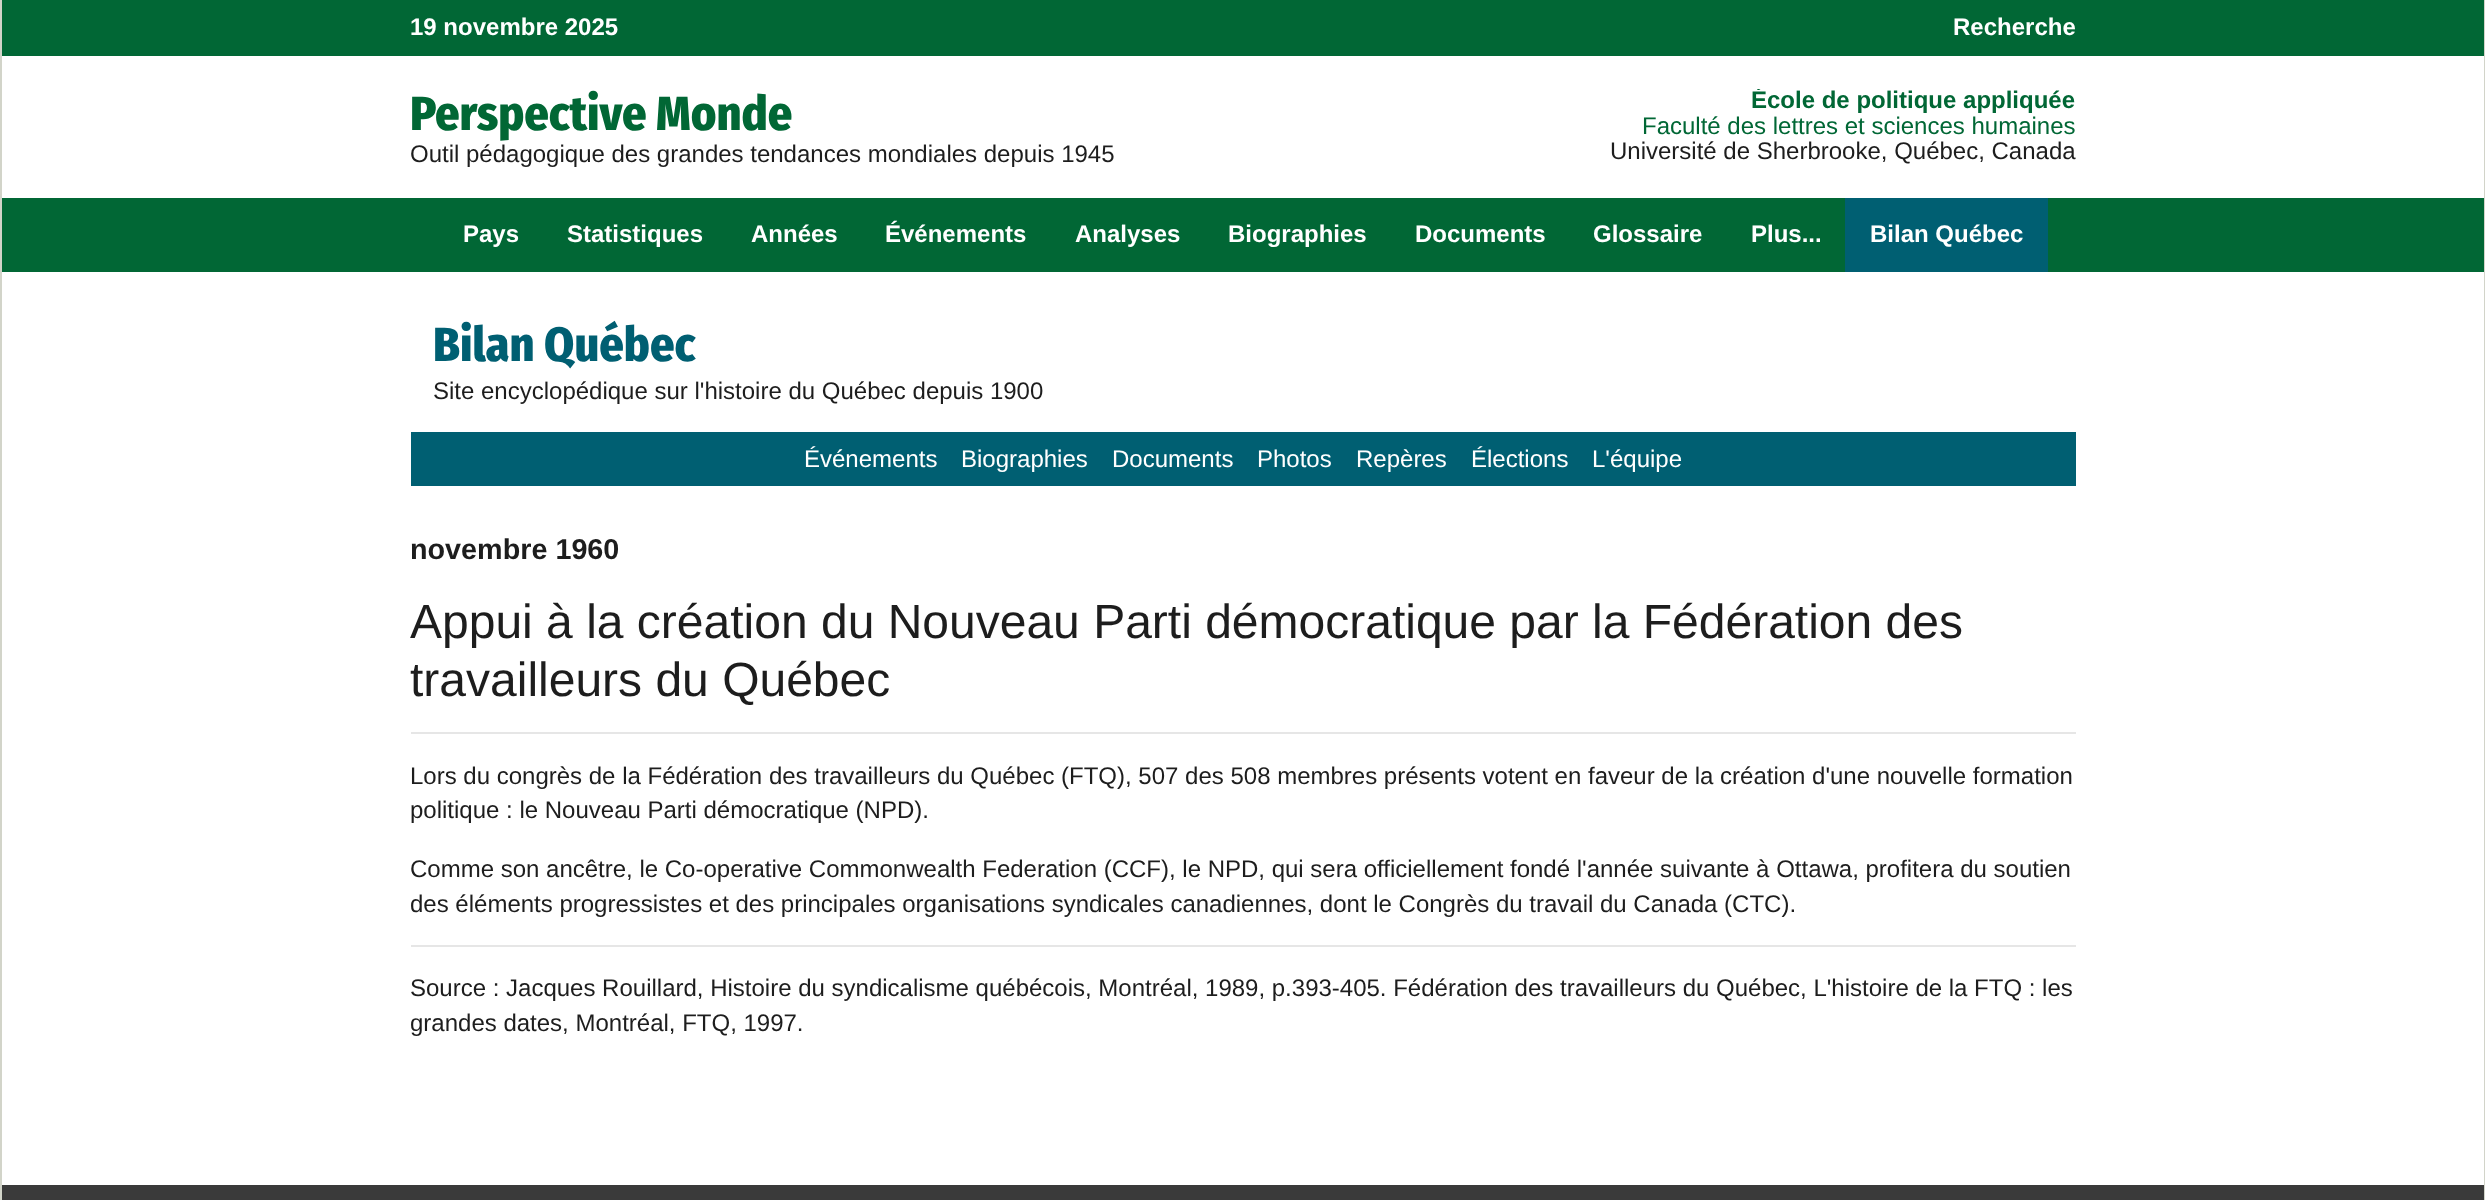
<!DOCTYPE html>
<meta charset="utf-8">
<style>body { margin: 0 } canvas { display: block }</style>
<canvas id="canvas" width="2485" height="1200"></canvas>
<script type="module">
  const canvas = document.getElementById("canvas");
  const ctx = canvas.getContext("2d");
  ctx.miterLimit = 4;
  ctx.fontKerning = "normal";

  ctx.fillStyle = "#ffffff";
  ctx.fillRect(0, 0, 2485, 1200);
  ctx.fillStyle = "#d2d4c9";
  ctx.fillRect(2484, 0, 1, 1200);
  ctx.fillRect(0, 0, 2, 1200);
  ctx.fillStyle = "#016735";
  ctx.fillRect(2, 0, 2482, 56);
  ctx.font = "bold 24px Liberation Sans";
  ctx.fillStyle = "#ffffff";
  ctx.fillText("19 novembre 2025", 410, 35);
  ctx.fillText("Recherche", 1953, 35);
  ctx.font = "800 48px Fira Sans Condensed";
  ctx.fillStyle = "#016735";
  ctx.fillText("Perspective Monde", 410, 130);
  ctx.font = "24px Liberation Sans";
  ctx.fillStyle = "#1d1d1d";
  ctx.fillText("Outil pédagogique des grandes tendances mondiales depuis 1945", 410, 162);
  ctx.save();
  ctx.beginPath();
  ctx.rect(1244, 89, 855, 76);
  ctx.clip();
  ctx.font = "bold 24px Liberation Sans";
  ctx.fillStyle = "#016735";
  ctx.fillText("École de politique appliquée", 1751, 108);
  ctx.restore();
  ctx.fillStyle = "#016735";
  ctx.fillText("Faculté des lettres et sciences humaines", 1642, 134);
  ctx.fillStyle = "#1d1d1d";
  ctx.fillText("Université de Sherbrooke, Québec, Canada", 1610, 159);
  ctx.fillStyle = "#016735";
  ctx.fillRect(2, 198, 2482, 74);
  ctx.font = "bold 24px Liberation Sans";
  ctx.fillStyle = "#ffffff";
  ctx.fillText("Pays", 463, 242);
  ctx.fillText("Statistiques", 567, 242);
  ctx.fillText("Années", 751, 242);
  ctx.fillText("Événements", 885, 242);
  ctx.fillText("Analyses", 1075, 242);
  ctx.fillText("Biographies", 1228, 242);
  ctx.fillText("Documents", 1415, 242);
  ctx.fillText("Glossaire", 1593, 242);
  ctx.fillText("Plus...", 1751, 242);
  ctx.fillStyle = "#005f72";
  ctx.fillRect(1845, 198, 203, 74);
  ctx.fillStyle = "#ffffff";
  ctx.fillText("Bilan Québec", 1870, 242);
  ctx.font = "800 48px Fira Sans Condensed";
  ctx.fillStyle = "#005f72";
  ctx.fillText("Bilan Québec", 433, 361);
  ctx.font = "24px Liberation Sans";
  ctx.fillStyle = "#1d1d1d";
  ctx.fillText("Site encyclopédique sur l'histoire du Québec depuis 1900", 433, 399);
  ctx.fillStyle = "#005f72";
  ctx.fillRect(411, 432, 1665, 54);
  ctx.fillStyle = "#ffffff";
  ctx.fillText("Événements", 804, 467);
  ctx.fillText("Biographies", 961, 467);
  ctx.fillText("Documents", 1112, 467);
  ctx.fillText("Photos", 1257, 467);
  ctx.fillText("Repères", 1356, 467);
  ctx.fillText("Élections", 1471, 467);
  ctx.fillText("L'équipe", 1592, 467);
  ctx.font = "bold 28.75px Liberation Sans";
  ctx.fillStyle = "#1d1d1d";
  ctx.fillText("novembre 1960", 410, 559);
  ctx.font = "48px Liberation Sans";
  ctx.fillText("Appui à la création du Nouveau Parti démocratique par la Fédération des", 410, 638);
  ctx.fillText("travailleurs du Québec", 410, 696);
  ctx.fillStyle = "#e6e6e6";
  ctx.fillRect(411, 732, 1665, 2);
  ctx.font = "24px Liberation Sans";
  ctx.fillStyle = "#1d1d1d";
  ctx.fillText("Lors du congrès de la Fédération des travailleurs du Québec (FTQ), 507 des 508 membres présents votent en faveur de la création d'une nouvelle formation", 410, 784);
  ctx.fillText("politique : le Nouveau Parti démocratique (NPD).", 410, 818);
  ctx.fillText("Comme son ancêtre, le Co-operative Commonwealth Federation (CCF), le NPD, qui sera officiellement fondé l'année suivante à Ottawa, profitera du soutien", 410, 877);
  ctx.fillText("des éléments progressistes et des principales organisations syndicales canadiennes, dont le Congrès du travail du Canada (CTC).", 410, 912);
  ctx.fillStyle = "#e6e6e6";
  ctx.fillRect(411, 945, 1665, 2);
  ctx.fillStyle = "#1d1d1d";
  ctx.fillText("Source : Jacques Rouillard, Histoire du syndicalisme québécois, Montréal, 1989, p.393-405. Fédération des travailleurs du Québec, L'histoire de la FTQ : les", 410, 996);
  ctx.fillText("grandes dates, Montréal, FTQ, 1997.", 410, 1031);
  ctx.fillStyle = "#3a3a3a";
  ctx.fillRect(2, 1185, 2482, 15);
</script>
